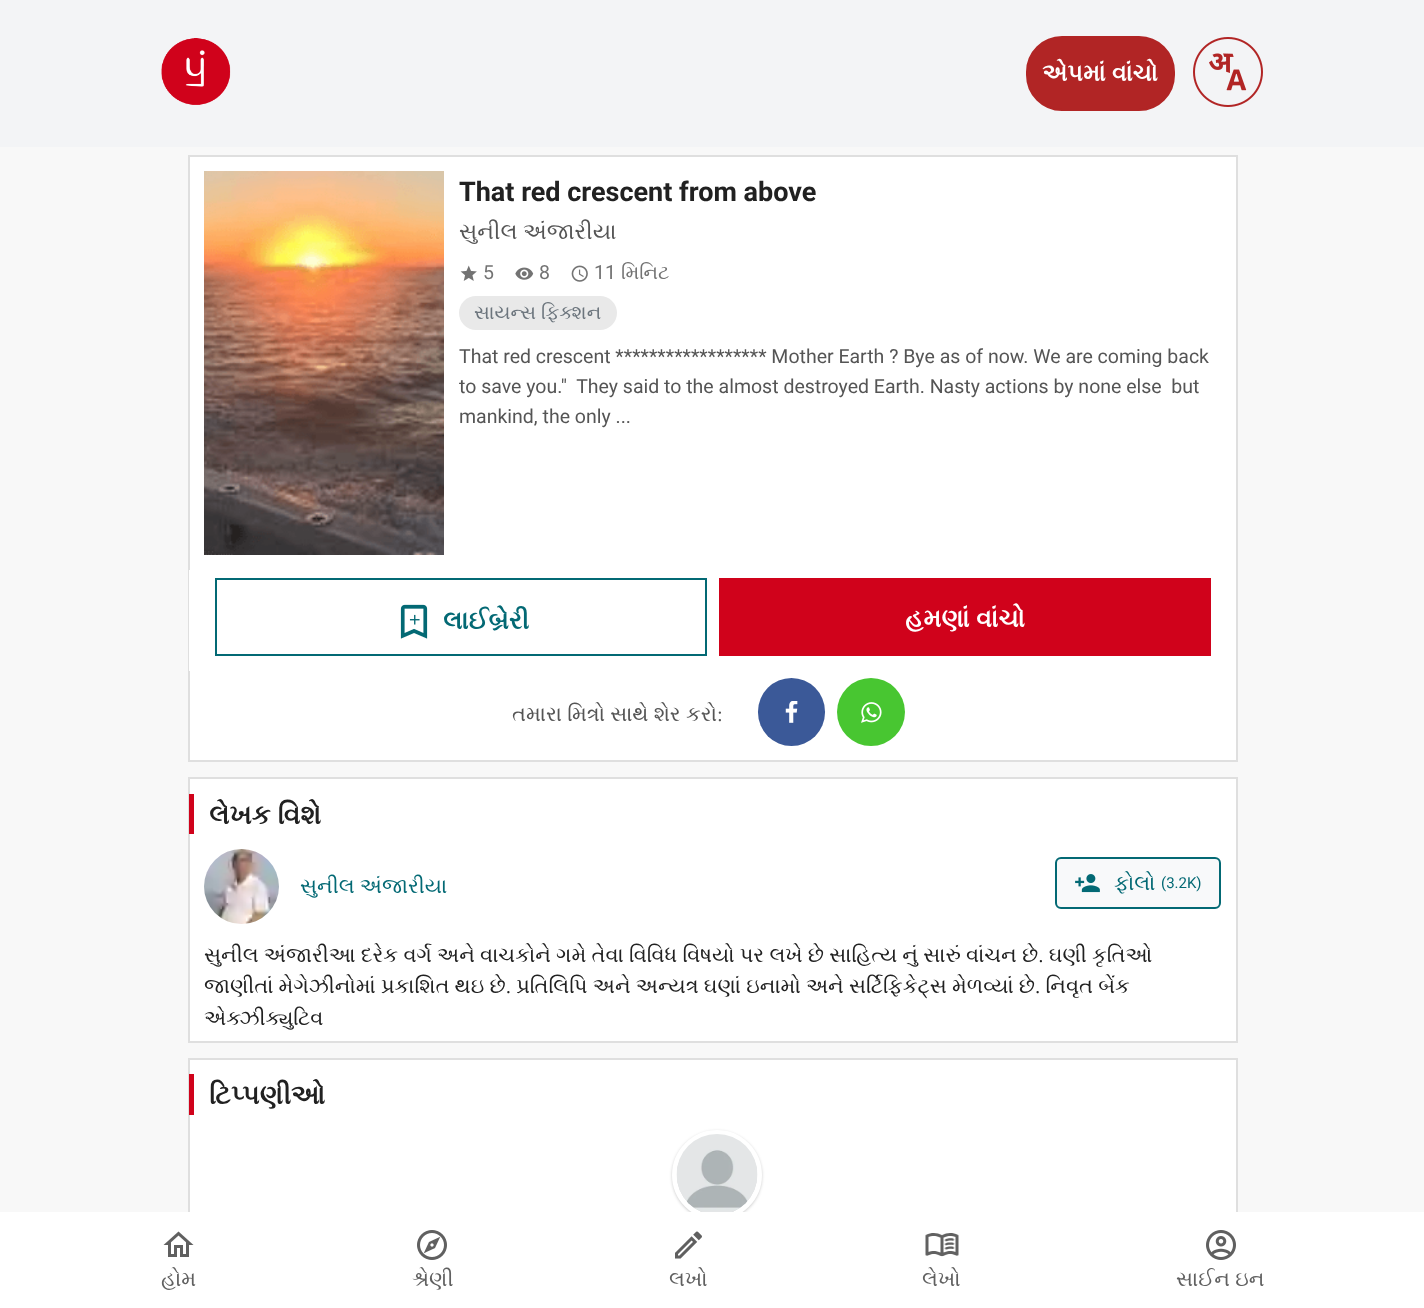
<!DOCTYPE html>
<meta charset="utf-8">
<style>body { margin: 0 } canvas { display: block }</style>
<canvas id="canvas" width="1424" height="1308"></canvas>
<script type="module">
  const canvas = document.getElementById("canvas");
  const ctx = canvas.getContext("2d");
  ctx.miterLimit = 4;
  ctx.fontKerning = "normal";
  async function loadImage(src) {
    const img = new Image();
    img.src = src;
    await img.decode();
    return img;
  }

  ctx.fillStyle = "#f3f4f6";
  ctx.fillRect(0, 0, 1424, 1308);
  ctx.drawImage(await loadImage("img1.png"), 161, 38, 70, 67);
  ctx.fillStyle = "#b12525";
  ctx.beginPath();
  ctx.roundRect(1027, 37, 147, 73, 35);
  ctx.fill();
  ctx.strokeStyle = "#b12525";
  ctx.lineWidth = 2;
  ctx.stroke();
  ctx.font = "bold 24px FreeSerif";
  ctx.fillStyle = "#ffffff";
  ctx.fillText("એપમાં વાંચો", 1042, 81);
  ctx.drawImage(await loadImage("img2.png"), 1193, 37, 70, 70);
  ctx.fillStyle = "#f8f8f8";
  ctx.fillRect(0, 147, 1424, 1065);
  ctx.fillStyle = "#ffffff";
  ctx.beginPath();
  ctx.rect(189, 156, 1048, 605);
  ctx.fill();
  ctx.strokeStyle = "#dfdfdf";
  ctx.stroke();
  ctx.drawImage(await loadImage("img3.png"), 204, 171, 240, 384);
  ctx.font = "bold 27px Roboto";
  ctx.fillStyle = "#212121";
  ctx.fillText("That red crescent from above", 459, 201);
  ctx.font = "22.5px FreeSerif";
  ctx.fillStyle = "#555555";
  ctx.fillText("સુનીલ અંજારીયા", 459, 239);
  ctx.drawImage(await loadImage("img4.png"), 460, 265, 17, 16);
  ctx.font = "19.5px Roboto";
  ctx.fillStyle = "#737373";
  ctx.fillText("5", 483, 279);
  ctx.drawImage(await loadImage("img5.png"), 515, 267, 19, 13);
  ctx.fillText("8", 539, 279);
  ctx.drawImage(await loadImage("img6.png"), 571, 265, 17, 17);
  ctx.fillText("11", 594, 279);
  ctx.font = "19.5px FreeSerif";
  ctx.fillText("મિનિટ", 621, 279);
  ctx.fillStyle = "#e9e9e9";
  ctx.beginPath();
  ctx.roundRect(459, 296, 158, 34, 17);
  ctx.fill();
  ctx.fillStyle = "#6c757d";
  ctx.fillText("સાયન્સ ફિક્શન", 474, 319);
  ctx.font = "19.5px Roboto";
  ctx.fillStyle = "#555555";
  ctx.fillText("That red crescent ****************** Mother Earth ? Bye as of now. We are coming back", 459, 363);
  ctx.fillText("to save you.\"  They said to the almost destroyed Earth. Nasty actions by none else  but", 459, 393);
  ctx.fillText("mankind, the only ...", 459, 423);
  ctx.fillStyle = "#ffffff";
  ctx.fillRect(189, 570, 1, 101);
  ctx.strokeStyle = "#036974";
  ctx.strokeRect(216, 579, 490, 76);
  ctx.drawImage(await loadImage("img7.png"), 400, 604, 28, 35);
  ctx.drawImage(await loadImage("img8.png"), 409, 614, 11, 11);
  ctx.font = "bold 25.5px FreeSerif";
  ctx.fillStyle = "#036974";
  ctx.fillText("લાઈબ્રેરી", 443, 629);
  ctx.fillStyle = "#d0021b";
  ctx.fillRect(719, 578, 492, 78);
  ctx.fillStyle = "#ffffff";
  ctx.fillText("હમણાં વાંચો", 905, 627);
  ctx.font = "21px FreeSerif";
  ctx.fillStyle = "#555555";
  ctx.fillText("તમારા મિત્રો સાથે શેર કરો:", 512, 721);
  ctx.fillStyle = "#3b5998";
  ctx.beginPath();
  ctx.roundRect(758, 678, 67, 68, 33.5);
  ctx.fill();
  ctx.drawImage(await loadImage("img9.png"), 785, 701, 13, 22);
  ctx.fillStyle = "#48c631";
  ctx.beginPath();
  ctx.arc(871, 712, 34, 0, Math.PI * 2);
  ctx.fill();
  ctx.drawImage(await loadImage("img10.png"), 861, 702, 21, 21);
  ctx.fillStyle = "#ffffff";
  ctx.beginPath();
  ctx.rect(189, 778, 1048, 264);
  ctx.fill();
  ctx.strokeStyle = "#dfdfdf";
  ctx.stroke();
  ctx.fillStyle = "#d0021b";
  ctx.fillRect(189, 794, 5, 40);
  ctx.font = "bold 27px FreeSerif";
  ctx.fillStyle = "#212121";
  ctx.fillText("લેખક વિશે", 209, 824);
  ctx.drawImage(await loadImage("img11.png"), 204, 849, 75, 75);
  ctx.font = "21px FreeSerif";
  ctx.fillStyle = "#036974";
  ctx.fillText("સુનીલ અંજારીયા", 300, 893);
  ctx.fillStyle = "#f8f9fa";
  ctx.beginPath();
  ctx.roundRect(1056, 858, 164, 50, 5);
  ctx.fill();
  ctx.strokeStyle = "#036974";
  ctx.stroke();
  ctx.drawImage(await loadImage("img12.png"), 1075, 874, 25, 19);
  ctx.fillStyle = "#036974";
  ctx.fillText("ફોલો", 1114, 890);
  ctx.font = "15px Roboto";
  ctx.fillText("(3.2K)", 1161, 888);
  ctx.save();
  ctx.beginPath();
  ctx.rect(204, 939, 1017, 95);
  ctx.clip();
  ctx.font = "21px FreeSerif";
  ctx.fillStyle = "#212121";
  ctx.fillText("સુનીલ અંજારીઆ દરેક વર્ગ અને વાચકોને ગમે તેવા વિવિધ વિષયો પર લખે છે સાહિત્ય નું સારું વાંચન છે. ઘણી કૃતિઓ", 204, 962);
  ctx.restore();
  ctx.font = "21px FreeSerif";
  ctx.fillStyle = "#212121";
  ctx.fillText("જાણીતાં મેગેઝીનોમાં પ્રકાશિત થઇ છે. પ્રતિલિપિ અને અન્યત્ર ઘણાં ઇનામો અને સર્ટિફિકેટ્સ મેળવ્યાં છે. નિવૃત બેંક", 204, 993);
  ctx.fillText("એક્ઝીક્યુટિવ", 204, 1025);
  ctx.fillStyle = "#ffffff";
  ctx.fillRect(190, 1060, 1046, 152);
  ctx.strokeStyle = "#dfdfdf";
  ctx.strokeRect(189, 1059, 1048, 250);
  ctx.fillStyle = "#d0021b";
  ctx.fillRect(189, 1074, 5, 41);
  ctx.font = "bold 27px FreeSerif";
  ctx.fillStyle = "#212121";
  ctx.fillText("ટિપ્પણીઓ", 209, 1104);
  ctx.fillStyle = "rgba(0, 0, 0, 0.2)";
  ctx.filter = "blur(1.5px)";
  ctx.beginPath();
  ctx.roundRect(672, 1131, 90, 90, 45);
  ctx.fill();
  ctx.filter = "none";
  ctx.beginPath();
  ctx.arc(717, 1175, 42.5, 0, Math.PI * 2);
  ctx.strokeStyle = "#ffffff";
  ctx.lineWidth = 5;
  ctx.stroke();
  ctx.drawImage(await loadImage("img13.png"), 676, 1134, 82, 78);
  ctx.fillStyle = "#ffffff";
  ctx.fillRect(0, 1212, 1424, 96);
  ctx.drawImage(await loadImage("img14.png"), 163, 1231, 31, 26);
  ctx.font = "21px FreeSerif";
  ctx.fillStyle = "#606060";
  ctx.fillText("હોમ", 161, 1286);
  ctx.drawImage(await loadImage("img15.png"), 417, 1230, 30, 30);
  ctx.fillText("શ્રેણી", 412, 1286);
  ctx.drawImage(await loadImage("img16.png"), 675, 1231, 27, 28);
  ctx.fillText("લખો", 669, 1286);
  ctx.drawImage(await loadImage("img17.png"), 925, 1233, 34, 24);
  ctx.fillText("લેખો", 922, 1286);
  ctx.drawImage(await loadImage("img18.png"), 1206, 1230, 30, 30);
  ctx.fillText("સાઈન ઇન", 1176, 1286);
</script>
